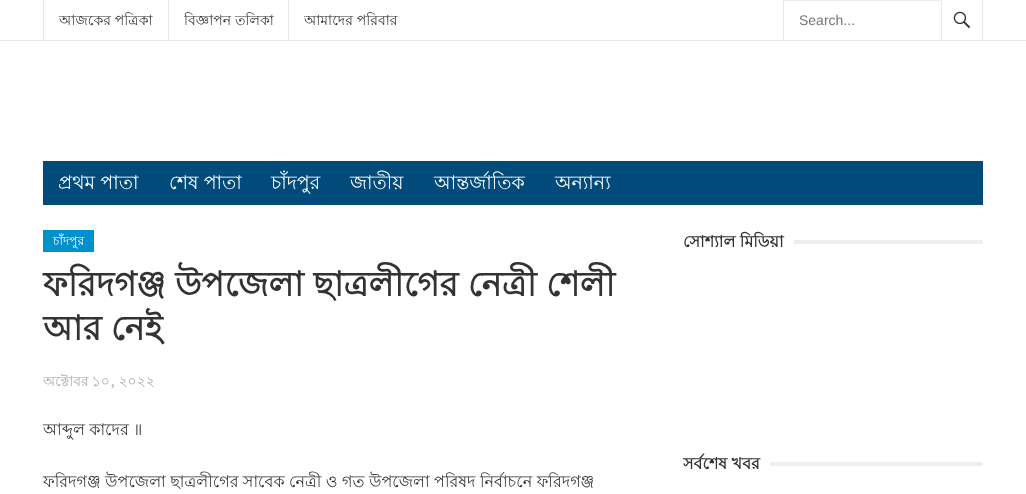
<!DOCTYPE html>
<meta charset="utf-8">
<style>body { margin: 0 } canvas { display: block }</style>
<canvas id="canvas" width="1026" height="494"></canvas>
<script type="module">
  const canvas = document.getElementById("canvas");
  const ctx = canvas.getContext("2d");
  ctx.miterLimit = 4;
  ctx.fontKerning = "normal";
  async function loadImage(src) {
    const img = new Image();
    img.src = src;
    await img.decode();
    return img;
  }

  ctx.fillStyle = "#ffffff";
  ctx.fillRect(0, 0, 1026, 494);
  ctx.fillStyle = "#e9e9e9";
  ctx.fillRect(0, 40, 1026, 1);
  ctx.fillRect(43, 0, 1, 40);
  ctx.font = "14px Lohit Bengali";
  ctx.fillStyle = "#333333";
  ctx.fillText("আজকের পত্রিকা", 59, 25);
  ctx.fillStyle = "#e9e9e9";
  ctx.fillRect(168, 0, 1, 40);
  ctx.fillStyle = "#333333";
  ctx.fillText("বিজ্ঞাপন তলিকা", 184, 25);
  ctx.fillStyle = "#e9e9e9";
  ctx.fillRect(288, 0, 1, 40);
  ctx.fillStyle = "#333333";
  ctx.fillText("আমাদের পরিবার", 304, 25);
  ctx.fillStyle = "#e9e9e9";
  ctx.fillRect(982, 0, 1, 40);
  ctx.fillRect(783, 0, 1, 40);
  ctx.fillStyle = "#ececec";
  ctx.fillRect(784, 0, 159, 1);
  ctx.font = "14px Liberation Sans";
  ctx.fillStyle = "#757575";
  ctx.fillText("Search...", 799, 25);
  ctx.fillStyle = "#ffffff";
  ctx.fillRect(942, 0, 1, 1);
  ctx.fillStyle = "#e9e9e9";
  ctx.fillRect(941, 0, 1, 40);
  ctx.drawImage(await loadImage("img1.png"), 953, 11, 18, 18);
  ctx.fillStyle = "#004b79";
  ctx.fillRect(43, 161, 940, 44);
  ctx.font = "19px Lohit Bengali";
  ctx.fillStyle = "#ffffff";
  ctx.fillText("প্রথম পাতা", 58, 189);
  ctx.fillText("শেষ পাতা", 169, 189);
  ctx.fillText("চাঁদপুর", 271, 189);
  ctx.fillText("জাতীয়", 350, 189);
  ctx.fillText("আন্তর্জাতিক", 434, 189);
  ctx.fillText("অন্যান্য", 555, 189);
  ctx.fillStyle = "#0091cd";
  ctx.fillRect(43, 230, 51, 22);
  ctx.font = "12px Lohit Bengali";
  ctx.fillStyle = "#ffffff";
  ctx.fillText("চাঁদপুর", 53, 245);
  ctx.font = "bold 34px Lohit Bengali";
  ctx.fillStyle = "#333333";
  ctx.fillText("ফরিদগঞ্জ উপজেলা ছাত্রলীগের নেত্রী শেলী", 43, 296);
  ctx.fillText("আর নেই", 43, 340);
  ctx.wordSpacing = "-1px";
  ctx.font = "14px Lohit Bengali";
  ctx.fillStyle = "#aaaaaa";
  ctx.fillText("অক্টোবর ১০, ২০২২", 43, 386);
  ctx.wordSpacing = "0px";
  ctx.font = "16px Lohit Bengali";
  ctx.fillStyle = "#333333";
  ctx.fillText("আব্দুল কাদের ॥", 43, 435);
  ctx.fillText("ফরিদগঞ্জ উপজেলা ছাত্রলীগের সাবেক নেত্রী ও গত উপজেলা পরিষদ নির্বাচনে ফরিদগঞ্জ", 43, 487);
  ctx.font = "bold 16px Lohit Bengali";
  ctx.fillText("সোশ্যাল মিডিয়া", 683, 247);
  ctx.fillStyle = "#eeeeee";
  ctx.fillRect(794, 240, 189, 4);
  ctx.fillStyle = "#333333";
  ctx.fillText("সর্বশেষ খবর", 683, 469);
  ctx.fillStyle = "#eeeeee";
  ctx.fillRect(770, 462, 213, 4);
</script>
